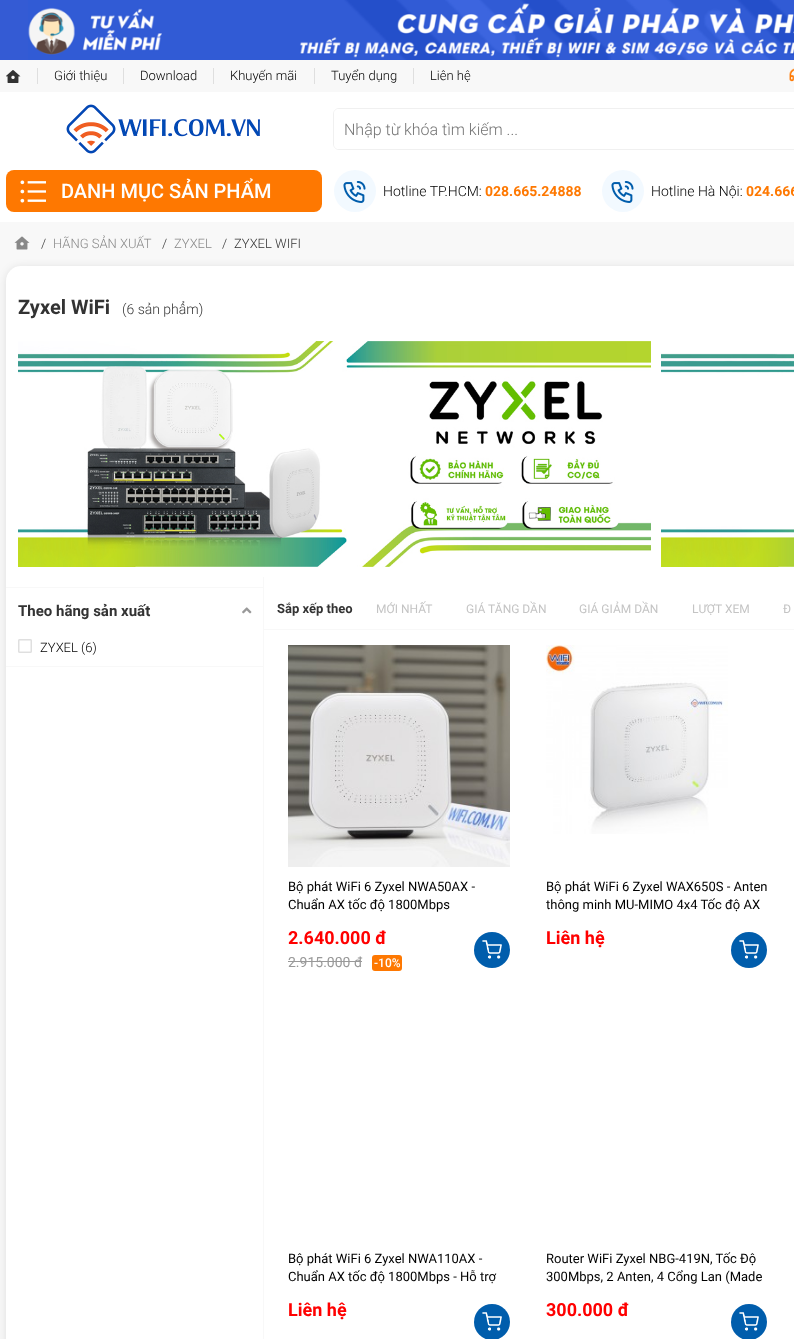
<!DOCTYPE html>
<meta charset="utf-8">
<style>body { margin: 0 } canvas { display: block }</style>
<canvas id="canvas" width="794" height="1339"></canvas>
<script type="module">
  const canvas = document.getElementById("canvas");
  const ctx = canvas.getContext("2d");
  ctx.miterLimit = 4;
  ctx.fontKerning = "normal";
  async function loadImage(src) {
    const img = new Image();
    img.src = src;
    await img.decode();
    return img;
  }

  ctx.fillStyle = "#f8f8f8";
  ctx.fillRect(0, 0, 794, 1339);
  ctx.fillStyle = "#345bd4";
  ctx.fillRect(0, 0, 28, 60);
  ctx.drawImage(await loadImage("img1.png"), 28, 0, 766, 60);
  ctx.fillStyle = "#ffffff";
  ctx.fillRect(0, 92, 794, 130);
  ctx.drawImage(await loadImage("img2.png"), 6, 70, 15, 13);
  ctx.fillStyle = "#dfdfdf";
  ctx.fillRect(37, 68, 1, 16);
  ctx.font = "300 13px Roboto";
  ctx.fillStyle = "#000000";
  ctx.fillText("Giới thiệu", 54, 80);
  ctx.fillStyle = "#dfdfdf";
  ctx.fillRect(123, 68, 1, 16);
  ctx.fillStyle = "#000000";
  ctx.fillText("Download", 140, 80);
  ctx.fillStyle = "#dfdfdf";
  ctx.fillRect(213, 68, 1, 16);
  ctx.fillStyle = "#000000";
  ctx.fillText("Khuyến mãi", 230, 80);
  ctx.fillStyle = "#dfdfdf";
  ctx.fillRect(314, 68, 1, 16);
  ctx.fillStyle = "#000000";
  ctx.fillText("Tuyển dụng", 331, 80);
  ctx.fillStyle = "#dfdfdf";
  ctx.fillRect(413, 68, 1, 16);
  ctx.fillStyle = "#000000";
  ctx.fillText("Liên hệ", 430, 80);
  ctx.drawImage(await loadImage("img3.png"), 789, 68, 5, 14);
  ctx.drawImage(await loadImage("img4.png"), 66, 104, 194, 50);
  ctx.beginPath();
  ctx.roundRect(333.5, 108.5, 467, 41, 5.5);
  ctx.strokeStyle = "#f0f0f0";
  ctx.stroke();
  ctx.fillStyle = "#ffffff";
  ctx.beginPath();
  ctx.moveTo(339, 109);
  ctx.lineTo(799, 109);
  ctx.lineTo(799, 149);
  ctx.lineTo(339, 149);
  ctx.bezierCurveTo(336, 149, 334, 147, 334, 144);
  ctx.lineTo(334, 114);
  ctx.bezierCurveTo(334, 111, 336, 109, 339, 109);
  ctx.closePath();
  ctx.fill();
  ctx.font = "300 16px Roboto";
  ctx.fillStyle = "#757575";
  ctx.fillText("Nhập từ khóa tìm kiếm ...", 344, 135);
  ctx.fillStyle = "#fe7801";
  ctx.beginPath();
  ctx.roundRect(6, 170, 316, 42, 8);
  ctx.fill();
  ctx.drawImage(await loadImage("img5.png"), 20, 180, 26, 23);
  ctx.font = "500 20px Roboto";
  ctx.fillStyle = "#ffffff";
  ctx.fillText("DANH MỤC SẢN PHẨM", 61, 198);
  ctx.fillStyle = "#f2f9ff";
  ctx.beginPath();
  ctx.arc(355, 191, 21, 0, Math.PI * 2);
  ctx.fill();
  ctx.drawImage(await loadImage("img6.png"), 343, 181, 23, 22);
  ctx.font = "300 14px Roboto";
  ctx.fillStyle = "#000000";
  ctx.fillText("Hotline TP.HCM:", 383, 196);
  ctx.font = "bold 14px Roboto";
  ctx.fillStyle = "#fe7801";
  ctx.fillText("028.665.24888", 485, 196);
  ctx.fillStyle = "#f2f9ff";
  ctx.beginPath();
  ctx.arc(623, 191, 21, 0, Math.PI * 2);
  ctx.fill();
  ctx.drawImage(await loadImage("img6.png"), 611, 181, 23, 22);
  ctx.font = "300 14px Roboto";
  ctx.fillStyle = "#000000";
  ctx.fillText("Hotline Hà Nội:", 651, 196);
  ctx.font = "bold 14px Roboto";
  ctx.fillStyle = "#fe7801";
  ctx.fillText("024.666", 746, 196);
  ctx.drawImage(await loadImage("img7.png"), 14, 236, 16, 14);
  ctx.font = "300 13px Roboto";
  ctx.fillStyle = "#333333";
  ctx.fillText("/", 41, 248);
  ctx.fillStyle = "#888888";
  ctx.fillText("HÃNG SẢN XUẤT", 53, 248);
  ctx.fillStyle = "#333333";
  ctx.fillText("/", 162, 248);
  ctx.fillStyle = "#888888";
  ctx.fillText("ZYXEL", 174, 248);
  ctx.fillStyle = "#333333";
  ctx.fillText("/", 222, 248);
  ctx.fillText("ZYXEL WIFI", 234, 248);
  ctx.fillStyle = "rgba(0, 0, 0, 0.1)";
  ctx.filter = "blur(4px)";
  ctx.beginPath();
  ctx.roundRect(6, 267, 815, 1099, 15);
  ctx.fill();
  ctx.filter = "none";
  ctx.fillStyle = "#ffffff";
  ctx.beginPath();
  ctx.roundRect(6, 266, 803, 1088, 15);
  ctx.fill();
  ctx.font = "bold 20px Roboto";
  ctx.fillStyle = "#333333";
  ctx.fillText("Zyxel WiFi", 18, 314);
  ctx.font = "300 14px Roboto";
  ctx.fillText("(6 sản phẩm)", 122, 314);
  ctx.drawImage(await loadImage("img8.png"), 18, 341, 633, 226);
  ctx.drawImage(await loadImage("img9.png"), 661, 353, 133, 214);
  ctx.fillStyle = "#f8f8f8";
  ctx.fillRect(263, 577, 1, 762);
  ctx.fillRect(6, 587, 257, 1);
  ctx.fillRect(6, 666, 257, 1);
  ctx.font = "bold 15px Roboto";
  ctx.fillStyle = "#333333";
  ctx.fillText("Theo hãng sản xuất", 18, 616);
  ctx.drawImage(await loadImage("img10.png"), 242, 607, 10, 7);
  ctx.drawImage(await loadImage("img11.png"), 18, 639, 14, 14);
  ctx.font = "300 13px Roboto";
  ctx.fillStyle = "#000000";
  ctx.fillText("ZYXEL (6)", 40, 652);
  ctx.fillStyle = "#f8f8f8";
  ctx.fillRect(264, 629, 530, 1);
  ctx.font = "bold 13px Roboto";
  ctx.fillStyle = "#333333";
  ctx.fillText("Sắp xếp theo", 277, 613);
  ctx.font = "12px Roboto";
  ctx.fillStyle = "#c4c4c4";
  ctx.fillText("MỚI NHẤT", 376, 613);
  ctx.fillText("GIÁ TĂNG DẦN", 466, 613);
  ctx.fillText("GIÁ GIẢM DẦN", 579, 613);
  ctx.fillText("LƯỢT XEM", 692, 613);
  ctx.fillText("Đ", 783, 613);
  ctx.drawImage(await loadImage("img12.png"), 288, 645, 222, 222);
  ctx.font = "13px Roboto";
  ctx.fillStyle = "#000000";
  ctx.fillText("Bộ phát WiFi 6 Zyxel NWA50AX -", 288, 891);
  ctx.fillText("Chuẩn AX tốc độ 1800Mbps", 288, 909);
  ctx.font = "bold 18px Roboto";
  ctx.fillStyle = "#ff0000";
  ctx.fillText("2.640.000 đ", 288, 944);
  ctx.font = "14px Roboto";
  ctx.fillStyle = "#999999";
  ctx.fillText("2.915.000 đ", 288, 967);
  ctx.fillRect(288, 961, 74, 1);
  ctx.fillStyle = "#fe7801";
  ctx.beginPath();
  ctx.roundRect(372, 955, 30, 16, 3);
  ctx.fill();
  ctx.font = "500 12px Roboto";
  ctx.fillStyle = "#ffffff";
  ctx.fillText("-10%", 374, 967);
  ctx.fillStyle = "#005dac";
  ctx.beginPath();
  ctx.arc(492, 950, 18, 0, Math.PI * 2);
  ctx.fill();
  ctx.drawImage(await loadImage("img13.png"), 482, 940, 20, 19);
  ctx.drawImage(await loadImage("img14.png"), 546, 645, 182, 189);
  ctx.font = "13px Roboto";
  ctx.fillStyle = "#000000";
  ctx.fillText("Bộ phát WiFi 6 Zyxel WAX650S - Anten", 546, 891);
  ctx.fillText("thông minh MU-MIMO 4x4 Tốc độ AX", 546, 909);
  ctx.font = "bold 18px Roboto";
  ctx.fillStyle = "#ff0000";
  ctx.fillText("Liên hệ", 546, 944);
  ctx.fillStyle = "#005dac";
  ctx.beginPath();
  ctx.arc(749, 950, 18, 0, Math.PI * 2);
  ctx.fill();
  ctx.drawImage(await loadImage("img13.png"), 739, 940, 20, 19);
  ctx.font = "13px Roboto";
  ctx.fillStyle = "#000000";
  ctx.fillText("Bộ phát WiFi 6 Zyxel NWA110AX -", 288, 1263);
  ctx.fillText("Chuẩn AX tốc độ 1800Mbps - Hỗ trợ", 288, 1281);
  ctx.font = "bold 18px Roboto";
  ctx.fillStyle = "#ff0000";
  ctx.fillText("Liên hệ", 288, 1316);
  ctx.fillStyle = "#005dac";
  ctx.beginPath();
  ctx.arc(492, 1322, 18, 0, Math.PI * 2);
  ctx.fill();
  ctx.drawImage(await loadImage("img13.png"), 482, 1312, 20, 19);
  ctx.font = "13px Roboto";
  ctx.fillStyle = "#000000";
  ctx.fillText("Router WiFi Zyxel NBG-419N, Tốc Độ", 546, 1263);
  ctx.fillText("300Mbps, 2 Anten, 4 Cổng Lan (Made", 546, 1281);
  ctx.font = "bold 18px Roboto";
  ctx.fillStyle = "#ff0000";
  ctx.fillText("300.000 đ", 546, 1316);
  ctx.fillStyle = "#005dac";
  ctx.beginPath();
  ctx.arc(749, 1322, 18, 0, Math.PI * 2);
  ctx.fill();
  ctx.drawImage(await loadImage("img13.png"), 739, 1312, 20, 19);
</script>
